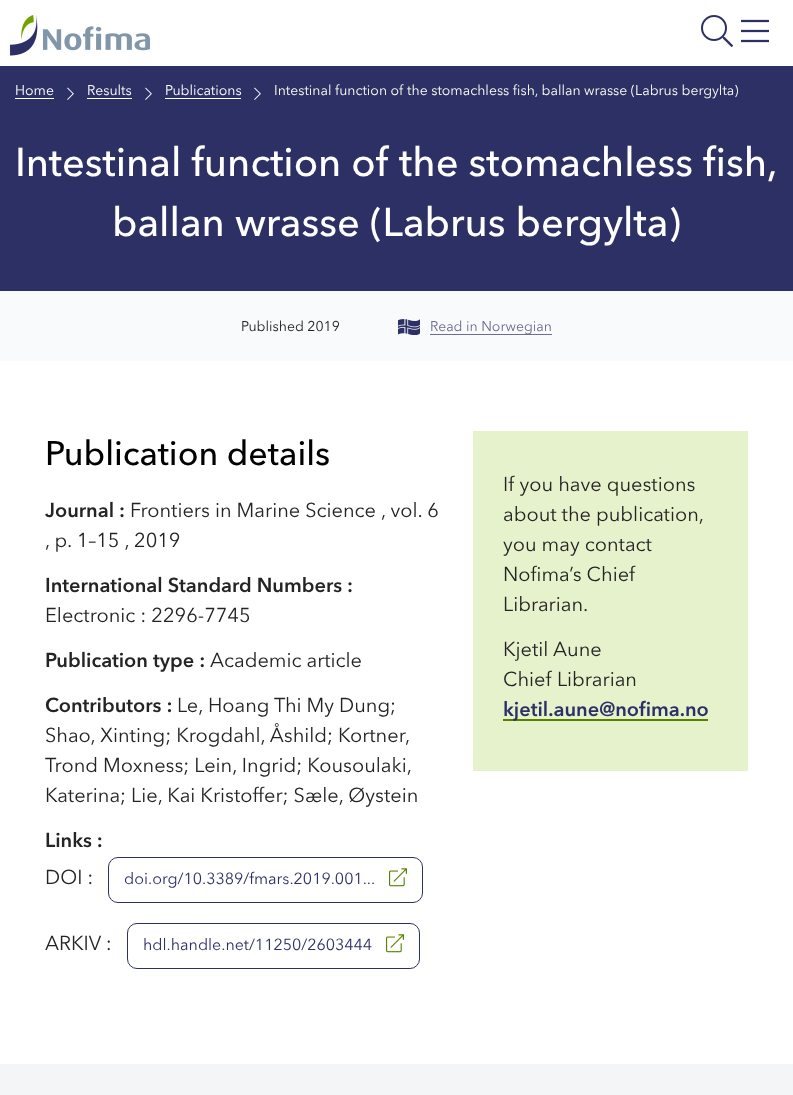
<!DOCTYPE html>
<meta charset="utf-8">
<style>body { margin: 0 } canvas { display: block }</style>
<canvas id="canvas" width="793" height="1095"></canvas>
<script type="module">
  const canvas = document.getElementById("canvas");
  const ctx = canvas.getContext("2d");
  ctx.miterLimit = 4;
  ctx.fontKerning = "normal";
  async function loadImage(src) {
    const img = new Image();
    img.src = src;
    await img.decode();
    return img;
  }

  ctx.fillStyle = "#ffffff";
  ctx.fillRect(0, 0, 793, 1095);
  ctx.drawImage(await loadImage("img1.png"), 10, 15, 140, 41);
  ctx.drawImage(await loadImage("img2.png"), 701, 15, 32, 32);
  ctx.drawImage(await loadImage("img3.png"), 741, 19, 28, 24);
  ctx.fillStyle = "#2d3065";
  ctx.fillRect(0, 66, 793, 225);
  ctx.font = "14px Avenir Next";
  ctx.fillStyle = "#ffffff";
  ctx.fillText("Home", 15, 95);
  ctx.fillRect(15, 98, 39, 1);
  ctx.drawImage(await loadImage("img4.png"), 67, 87, 7, 13);
  ctx.fillText("Results", 87, 95);
  ctx.fillRect(87, 98, 45, 1);
  ctx.drawImage(await loadImage("img4.png"), 145, 87, 7, 13);
  ctx.fillText("Publications", 165, 95);
  ctx.fillRect(165, 98, 76, 1);
  ctx.drawImage(await loadImage("img4.png"), 254, 87, 7, 13);
  ctx.fillStyle = "#f9fcf2";
  ctx.fillText("Intestinal function of the stomachless fish, ballan wrasse (Labrus bergylta)", 274, 95);
  ctx.font = "500 40px Avenir Next";
  ctx.fillStyle = "#ffffff";
  ctx.fillText("Intestinal function of the stomachless fish,", 15, 176);
  ctx.fillText("ballan wrasse (Labrus bergylta)", 112, 236);
  ctx.fillStyle = "#f9fafb";
  ctx.fillRect(0, 291, 793, 70);
  ctx.font = "14px Avenir Next";
  ctx.fillStyle = "#242424";
  ctx.fillText("Published 2019", 241, 331);
  ctx.drawImage(await loadImage("img5.png"), 398, 319, 22, 16);
  ctx.fillStyle = "#6b6d93";
  ctx.fillRect(430, 334, 122, 1);
  ctx.fillText("Read in Norwegian", 430, 331);
  ctx.font = "500 34px Avenir Next";
  ctx.fillStyle = "#000000";
  ctx.fillText("Publication details", 45, 465);
  ctx.font = "bold 20px Avenir Next";
  ctx.fillStyle = "#242424";
  ctx.fillText("Journal :", 45, 517);
  ctx.font = "20px Avenir Next";
  ctx.fillText("Frontiers in Marine Science , vol. 6", 130, 517);
  ctx.fillText(", p. 1–15 , 2019", 45, 547);
  ctx.font = "bold 20px Avenir Next";
  ctx.fillText("International Standard Numbers :", 45, 592);
  ctx.font = "20px Avenir Next";
  ctx.fillText("Electronic : 2296-7745", 45, 622);
  ctx.font = "bold 20px Avenir Next";
  ctx.fillText("Publication type :", 45, 667);
  ctx.font = "20px Avenir Next";
  ctx.fillText("Academic article", 210, 667);
  ctx.font = "bold 20px Avenir Next";
  ctx.fillText("Contributors :", 45, 712);
  ctx.font = "20px Avenir Next";
  ctx.fillText("Le, Hoang Thi My Dung;", 177, 712);
  ctx.fillText("Shao, Xinting; Krogdahl, Åshild; Kortner,", 45, 742);
  ctx.fillText("Trond Moxness; Lein, Ingrid; Kousoulaki,", 45, 772);
  ctx.fillText("Katerina; Lie, Kai Kristoffer; Sæle, Øystein", 45, 802);
  ctx.font = "bold 20px Avenir Next";
  ctx.fillText("Links :", 45, 847);
  ctx.font = "20px Avenir Next";
  ctx.fillText("DOI :", 45, 884);
  ctx.beginPath();
  ctx.roundRect(108.5, 857.5, 314, 45, 9.5);
  ctx.strokeStyle = "#2d3065";
  ctx.stroke();
  ctx.font = "16px Avenir Next";
  ctx.fillStyle = "#2d3065";
  ctx.fillText("doi.org/10.3389/fmars.2019.001...", 124, 884);
  ctx.drawImage(await loadImage("img6.png"), 389, 868, 18, 19);
  ctx.font = "20px Avenir Next";
  ctx.fillStyle = "#242424";
  ctx.fillText("ARKIV :", 45, 950);
  ctx.beginPath();
  ctx.roundRect(127.5, 923.5, 292, 45, 9.5);
  ctx.stroke();
  ctx.font = "16px Avenir Next";
  ctx.fillStyle = "#2d3065";
  ctx.fillText("hdl.handle.net/11250/2603444", 143, 950);
  ctx.drawImage(await loadImage("img6.png"), 386, 934, 18, 19);
  ctx.fillStyle = "#e6f2cc";
  ctx.fillRect(473, 431, 275, 340);
  ctx.font = "20px Avenir Next";
  ctx.fillStyle = "#242424";
  ctx.fillText("If you have questions", 503, 491);
  ctx.fillText("about the publication,", 503, 521);
  ctx.fillText("you may contact", 503, 551);
  ctx.fillText("Nofima’s Chief", 503, 581);
  ctx.fillText("Librarian.", 503, 611);
  ctx.fillText("Kjetil Aune", 503, 656);
  ctx.fillText("Chief Librarian", 503, 686);
  ctx.fillStyle = "#588100";
  ctx.fillRect(503, 719, 205, 2);
  ctx.font = "bold 20px Avenir Next";
  ctx.fillStyle = "#2d3065";
  ctx.fillText("kjetil.aune@nofima.no", 503, 716);
  ctx.fillStyle = "#f4f5f6";
  ctx.fillRect(0, 1064, 793, 31);
</script>
